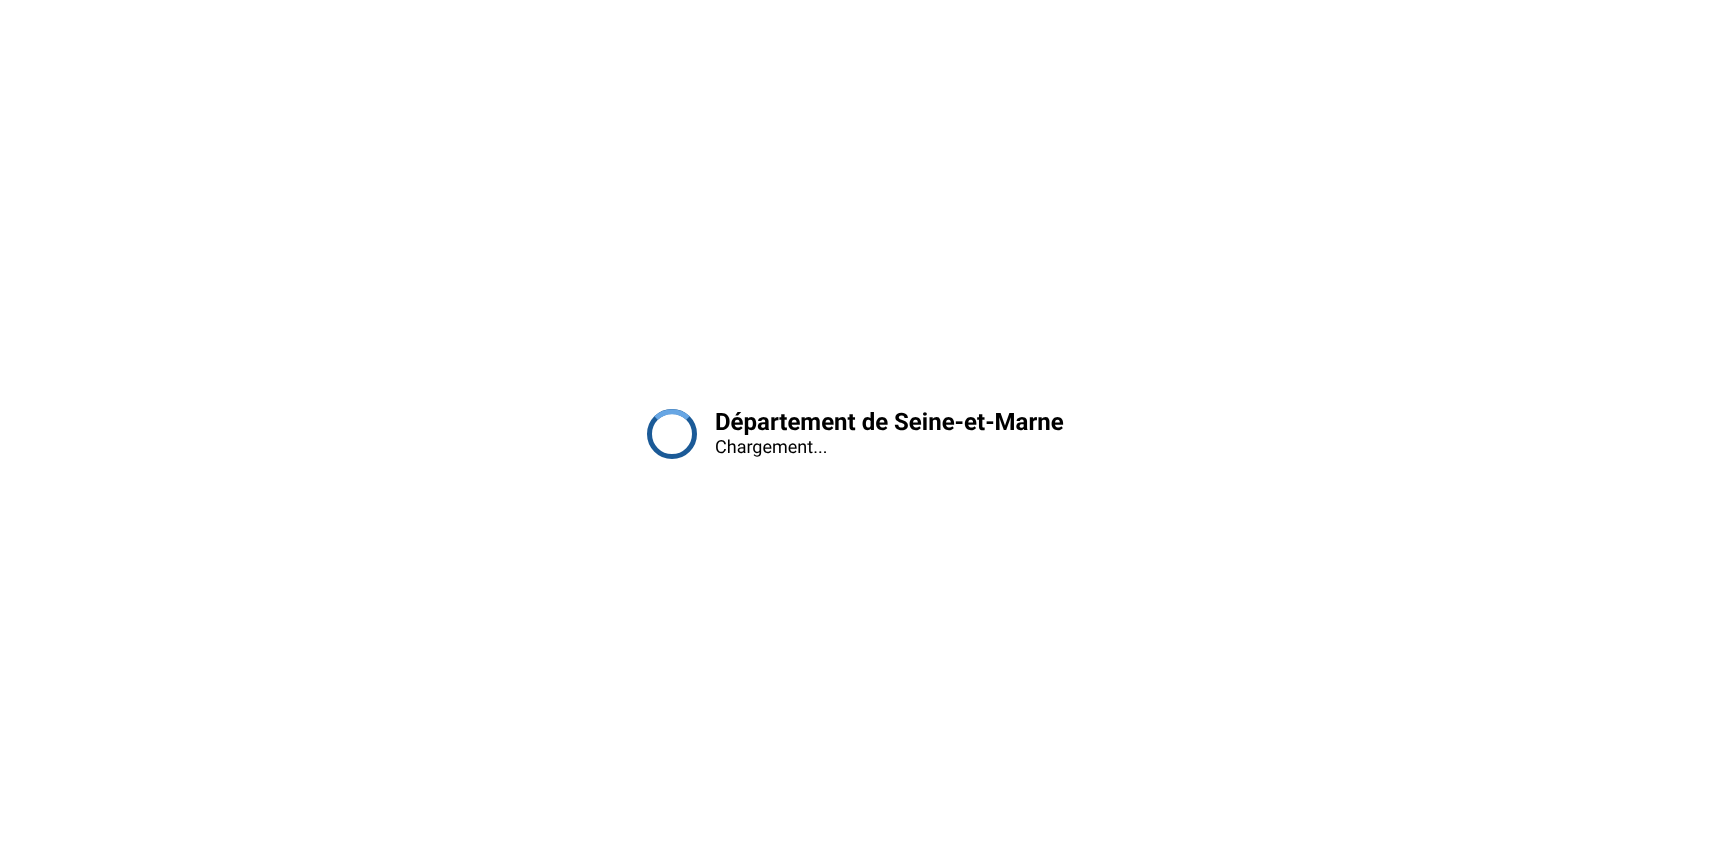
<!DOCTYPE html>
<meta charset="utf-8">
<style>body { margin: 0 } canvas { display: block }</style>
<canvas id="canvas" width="1711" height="867"></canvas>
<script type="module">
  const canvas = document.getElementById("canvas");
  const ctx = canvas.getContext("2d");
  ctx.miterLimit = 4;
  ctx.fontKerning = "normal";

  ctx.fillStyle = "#ffffff";
  ctx.fillRect(0, 0, 1711, 867);
  ctx.beginPath();
  ctx.arc(672, 434, 22.5, 0, Math.PI * 2);
  ctx.strokeStyle = "#1b5a97";
  ctx.lineWidth = 5;
  ctx.stroke();
  ctx.beginPath();
  ctx.moveTo(656, 418);
  ctx.bezierCurveTo(665, 409.5, 679, 409.5, 688, 418);
  ctx.strokeStyle = "#67a6e4";
  ctx.stroke();
  ctx.font = "bold 24px Roboto";
  ctx.fillStyle = "#000000";
  ctx.fillText("Département de Seine-et-Marne", 715, 430);
  ctx.font = "18px Roboto";
  ctx.fillText("Chargement...", 715, 453);
</script>
